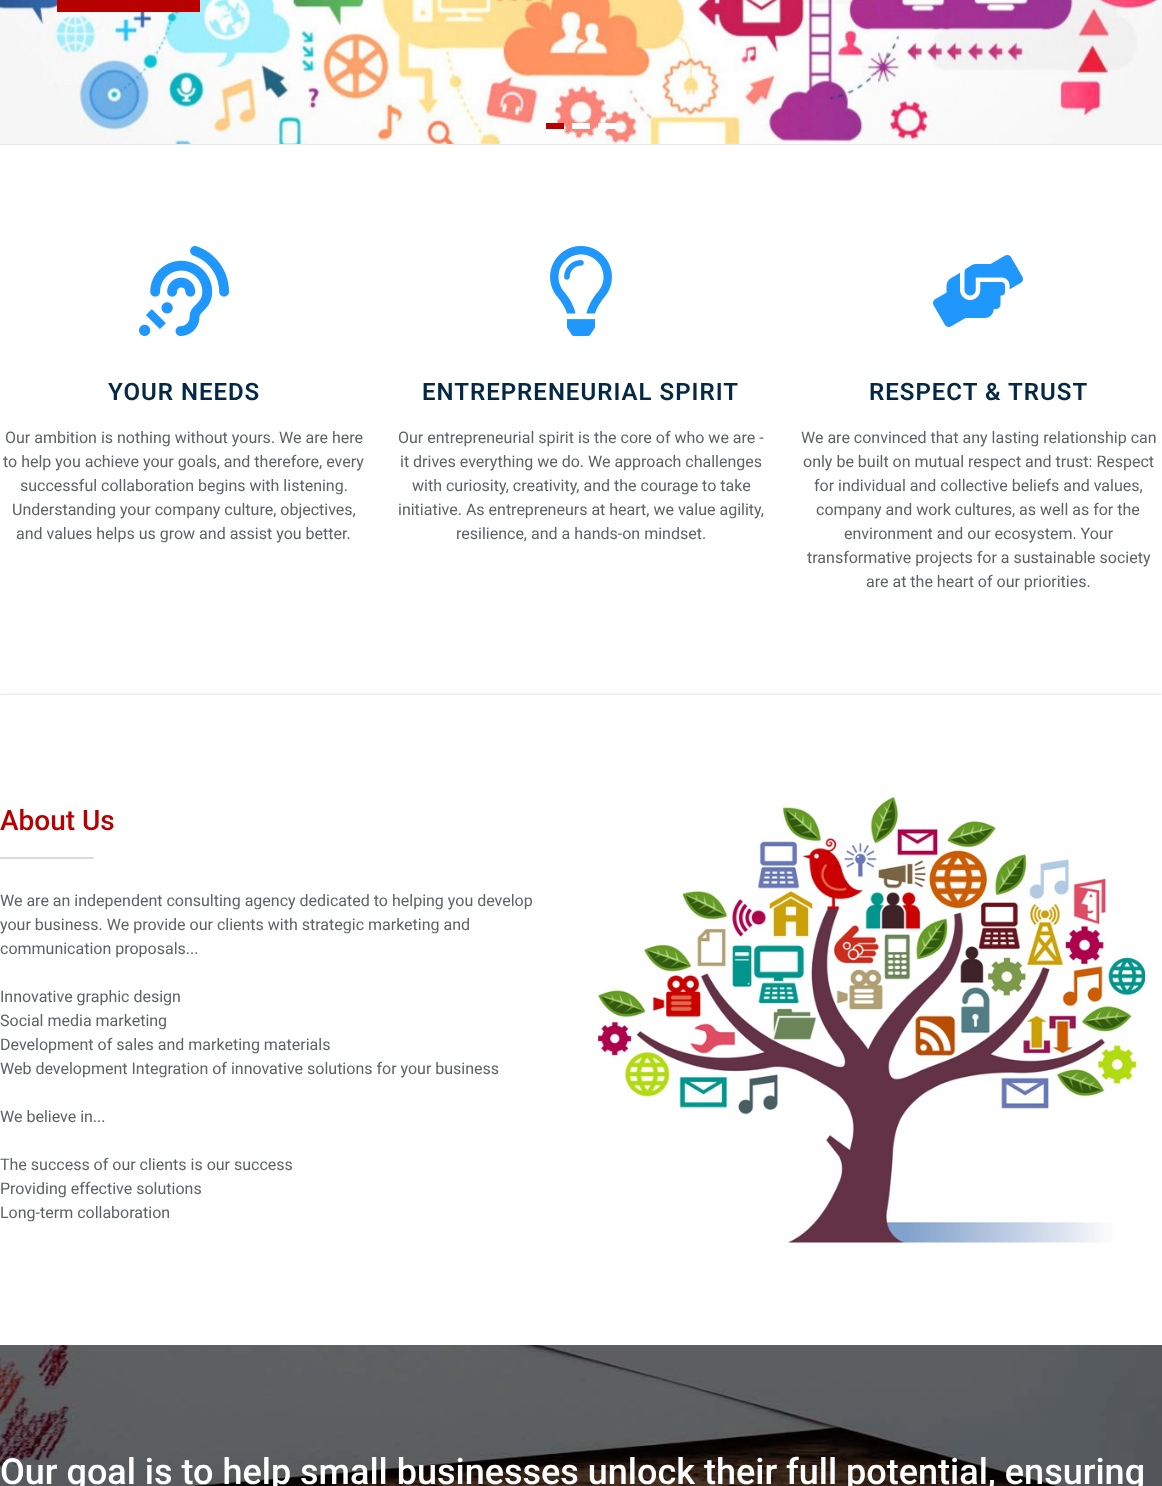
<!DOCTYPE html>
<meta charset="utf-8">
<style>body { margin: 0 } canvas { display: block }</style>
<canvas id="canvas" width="1162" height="1486"></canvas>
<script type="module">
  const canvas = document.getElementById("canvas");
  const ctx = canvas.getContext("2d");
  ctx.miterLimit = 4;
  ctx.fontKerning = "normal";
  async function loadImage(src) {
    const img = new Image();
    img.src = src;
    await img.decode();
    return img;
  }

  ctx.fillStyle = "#ffffff";
  ctx.fillRect(0, 0, 1162, 1486);
  ctx.fillStyle = "#eaeaea";
  ctx.fillRect(0, 144, 1162, 1);
  ctx.drawImage(await loadImage("img1.png"), 0, 0, 1162, 144);
  ctx.fillStyle = "#b70000";
  ctx.fillRect(57, 0, 143, 12);
  ctx.fillRect(546, 123, 18, 6);
  ctx.fillStyle = "#ffffff";
  ctx.fillRect(572, 123, 18, 6);
  ctx.fillRect(598, 123, 18, 6);
  ctx.drawImage(await loadImage("img2.png"), 139, 246, 90, 90);
  ctx.letterSpacing = "1px";
  ctx.font = "600 24px Roboto";
  ctx.fillStyle = "#052944";
  ctx.fillText("YOUR NEEDS", 108, 400);
  ctx.letterSpacing = "0px";
  ctx.font = "16px Roboto";
  ctx.fillStyle = "#5c6266";
  ctx.fillText("Our ambition is nothing without yours. We are here", 5, 443);
  ctx.fillText("to help you achieve your goals, and therefore, every", 3, 467);
  ctx.fillText("successful collaboration begins with listening.", 20, 491);
  ctx.fillText("Understanding your company culture, objectives,", 12, 515);
  ctx.fillText("and values helps us grow and assist you better.", 16, 539);
  ctx.drawImage(await loadImage("img3.png"), 550, 246, 62, 90);
  ctx.letterSpacing = "1px";
  ctx.font = "600 24px Roboto";
  ctx.fillStyle = "#052944";
  ctx.fillText("ENTREPRENEURIAL SPIRIT", 422, 400);
  ctx.letterSpacing = "0px";
  ctx.font = "16px Roboto";
  ctx.fillStyle = "#5c6266";
  ctx.fillText("Our entrepreneurial spirit is the core of who we are -", 398, 443);
  ctx.fillText("it drives everything we do. We approach challenges", 400, 467);
  ctx.fillText("with curiosity, creativity, and the courage to take", 412, 491);
  ctx.fillText("initiative. As entrepreneurs at heart, we value agility,", 398, 515);
  ctx.fillText("resilience, and a hands-on mindset.", 456, 539);
  ctx.drawImage(await loadImage("img4.png"), 933, 255, 90, 72);
  ctx.letterSpacing = "1px";
  ctx.font = "600 24px Roboto";
  ctx.fillStyle = "#052944";
  ctx.fillText("RESPECT", 869, 400);
  ctx.fillText("& TRUST", 985, 400);
  ctx.letterSpacing = "0px";
  ctx.font = "16px Roboto";
  ctx.fillStyle = "#5c6266";
  ctx.fillText("We are convinced that any lasting relationship can", 801, 443);
  ctx.fillText("only be built on mutual respect and trust: Respect", 803, 467);
  ctx.fillText("for individual and collective beliefs and values,", 814, 491);
  ctx.fillText("company and work cultures, as well as for the", 816, 515);
  ctx.fillText("environment and our ecosystem. Your", 844, 539);
  ctx.fillText("transformative projects for a sustainable society", 807, 563);
  ctx.fillText("are at the heart of our priorities.", 866, 587);
  ctx.save();
  ctx.beginPath();
  ctx.rect(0, 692, 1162, 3);
  ctx.clip();
  ctx.fillStyle = "rgba(158, 158, 158, 0.5)";
  ctx.filter = "blur(1.5px)";
  ctx.beginPath();
  ctx.rect(0, 695, 1162, 650);
  ctx.fill();
  ctx.filter = "none";
  ctx.restore();
  ctx.font = "500 28px Roboto";
  ctx.fillStyle = "#b70000";
  ctx.fillText("About Us", 0, 830);
  ctx.fillStyle = "#dbdbdb";
  ctx.fillRect(0, 857, 94, 2);
  ctx.font = "16px Roboto";
  ctx.fillStyle = "#5c6266";
  ctx.fillText("We are an independent consulting agency dedicated to helping you develop", 0, 906);
  ctx.fillText("your business. We provide our clients with strategic marketing and", 0, 930);
  ctx.fillText("communication proposals...", 0, 954);
  ctx.fillText("Innovative graphic design", 0, 1002);
  ctx.fillText("Social media marketing", 0, 1026);
  ctx.fillText("Development of sales and marketing materials", 0, 1050);
  ctx.fillText("Web development Integration of innovative solutions for your business", 0, 1074);
  ctx.fillText("We believe in...", 0, 1122);
  ctx.fillText("The success of our clients is our success", 0, 1170);
  ctx.fillText("Providing effective solutions", 0, 1194);
  ctx.fillText("Long-term collaboration", 0, 1218);
  ctx.drawImage(await loadImage("img5.png"), 598, 796, 547, 447);
  ctx.drawImage(await loadImage("img6.png"), 0, 1345, 1162, 141);
  ctx.font = "500 36px Roboto";
  ctx.fillStyle = "#ffffff";
  ctx.fillText("Our goal is to help small businesses unlock their full potential, ensuring", 0, 1484);
</script>
